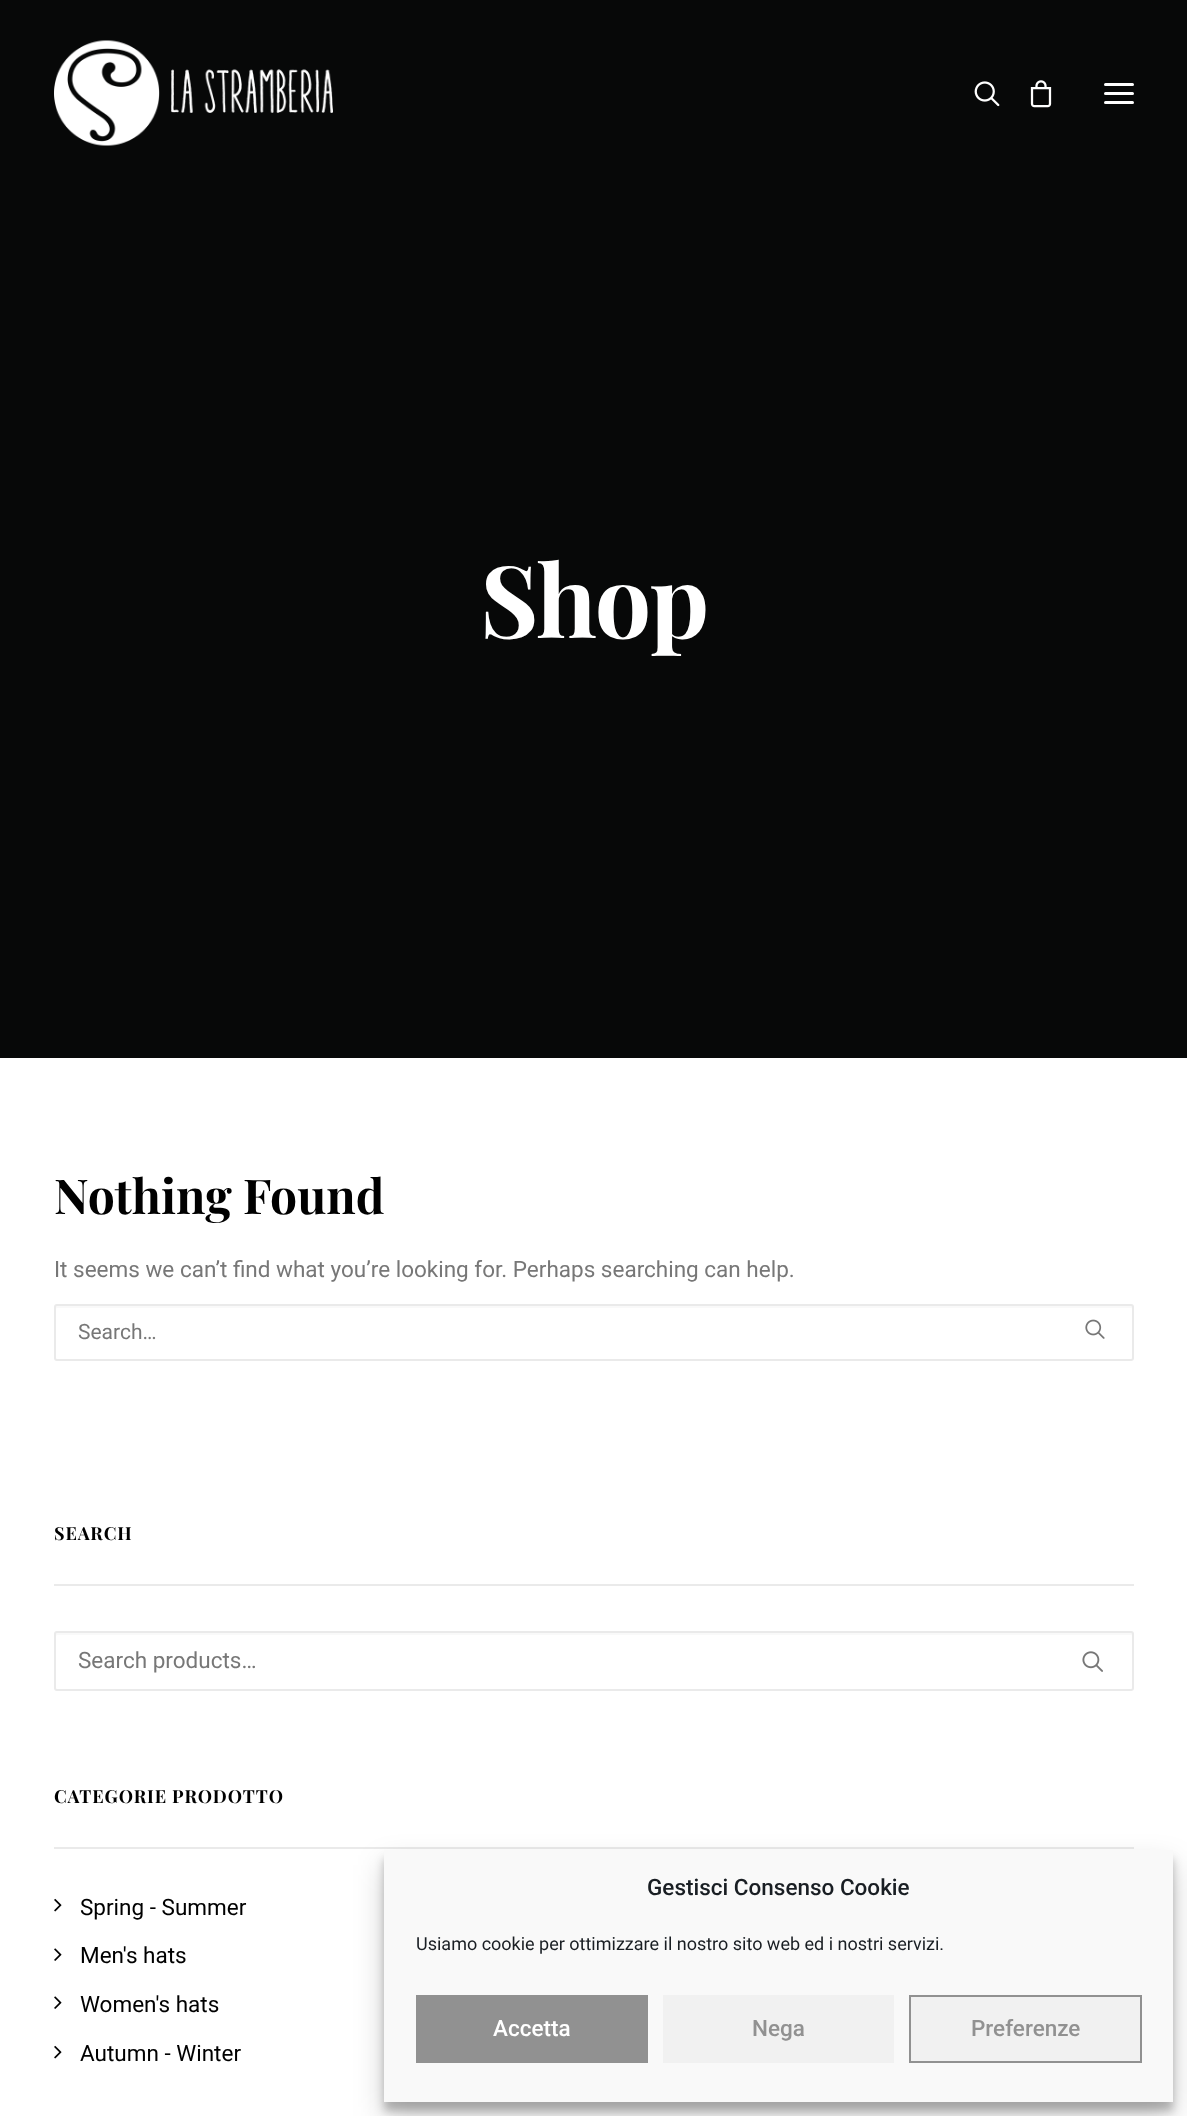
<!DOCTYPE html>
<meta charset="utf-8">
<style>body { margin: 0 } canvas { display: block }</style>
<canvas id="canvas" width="1187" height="2116"></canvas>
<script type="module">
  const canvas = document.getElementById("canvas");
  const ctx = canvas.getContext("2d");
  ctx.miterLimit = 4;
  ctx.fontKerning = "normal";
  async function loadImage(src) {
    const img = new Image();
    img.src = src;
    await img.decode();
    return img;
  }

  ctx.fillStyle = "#070808";
  ctx.fillRect(0, 0, 1187, 2116);
  ctx.drawImage(await loadImage("img1.png"), 54, 40, 279, 106);
  ctx.drawImage(await loadImage("img2.png"), 974, 81, 26, 26);
  ctx.drawImage(await loadImage("img3.png"), 1030, 80, 22, 28);
  ctx.fillStyle = "#ffffff";
  ctx.beginPath();
  ctx.roundRect(1104, 92, 30, 3, 1.5);
  ctx.fill();
  ctx.beginPath();
  ctx.roundRect(1104, 83, 30, 3, 1.5);
  ctx.fill();
  ctx.beginPath();
  ctx.roundRect(1104, 101, 30, 3, 1.5);
  ctx.fill();
  ctx.letterSpacing = "-2px";
  ctx.font = "bold 100px Playfair Display";
  ctx.fillText("Shop", 480, 638);
  ctx.fillRect(0, 1058, 1187, 1058);
  ctx.letterSpacing = "0px";
  ctx.font = "bold 48px Playfair Display";
  ctx.fillStyle = "#000000";
  ctx.fillText("Nothing Found", 54, 1214);
  ctx.font = "22.5px Roboto";
  ctx.fillStyle = "#777777";
  ctx.fillText("It seems we can’t find what you’re looking for. Perhaps searching can help.", 54, 1277);
  ctx.fillStyle = "#f9f9f9";
  ctx.beginPath();
  ctx.moveTo(57, 1308);
  ctx.lineTo(1131, 1308);
  ctx.bezierCurveTo(1133, 1308, 1133, 1312, 1132, 1314);
  ctx.lineTo(1132, 1352);
  ctx.lineTo(1133, 1358);
  ctx.lineTo(1133, 1315);
  ctx.bezierCurveTo(1133, 1312, 1135, 1305, 1132, 1305);
  ctx.lineTo(58, 1305);
  ctx.lineTo(56, 1305);
  ctx.lineTo(56, 1310);
  ctx.bezierCurveTo(56, 1309, 56, 1308, 57, 1308);
  ctx.closePath();
  ctx.fill();
  ctx.beginPath();
  ctx.roundRect(55, 1305, 1078, 55, 2);
  ctx.strokeStyle = "#eaeaea";
  ctx.lineWidth = 2;
  ctx.stroke();
  ctx.font = "21px Roboto";
  ctx.fillStyle = "#777777";
  ctx.fillText("Search…", 78, 1339);
  ctx.drawImage(await loadImage("img4.png"), 1085, 1319, 20, 20);
  ctx.fillStyle = "#eaeaea";
  ctx.fillRect(54, 1584, 1080, 2);
  ctx.letterSpacing = "0.9px";
  ctx.font = "bold 18px Playfair Display";
  ctx.fillStyle = "#000000";
  ctx.fillText("SEARCH", 54, 1540);
  ctx.fillStyle = "#f9f9f9";
  ctx.beginPath();
  ctx.moveTo(57, 1635);
  ctx.lineTo(1131, 1635);
  ctx.bezierCurveTo(1132, 1635, 1132, 1636, 1132, 1636);
  ctx.lineTo(1132, 1689);
  ctx.bezierCurveTo(1133, 1689, 1133, 1688, 1133, 1688);
  ctx.lineTo(1133, 1634);
  ctx.bezierCurveTo(1133, 1633, 1132, 1632, 1132, 1632);
  ctx.lineTo(58, 1632);
  ctx.bezierCurveTo(57, 1632, 56, 1633, 56, 1634);
  ctx.lineTo(56, 1636);
  ctx.closePath();
  ctx.fill();
  ctx.beginPath();
  ctx.roundRect(55, 1632, 1078, 58, 2);
  ctx.stroke();
  ctx.letterSpacing = "0px";
  ctx.font = "22.5px Roboto";
  ctx.fillStyle = "#777777";
  ctx.fillText("Search products…", 78, 1668);
  ctx.drawImage(await loadImage("img5.png"), 1082, 1651, 21, 21);
  ctx.fillStyle = "#eaeaea";
  ctx.fillRect(54, 1847, 1080, 2);
  ctx.letterSpacing = "0.9px";
  ctx.font = "bold 18px Playfair Display";
  ctx.fillStyle = "#000000";
  ctx.fillText("CATEGORIE PRODOTTO", 54, 1803);
  ctx.drawImage(await loadImage("img6.png"), 54, 1898, 8, 14);
  ctx.letterSpacing = "0px";
  ctx.font = "22.5px Roboto";
  ctx.fillText("Spring - Summer", 80, 1915);
  ctx.drawImage(await loadImage("img7.png"), 54, 1948, 8, 13);
  ctx.fillText("Men's hats", 80, 1963);
  ctx.drawImage(await loadImage("img7.png"), 54, 1996, 8, 13);
  ctx.fillText("Women's hats", 80, 2012);
  ctx.drawImage(await loadImage("img6.png"), 54, 2045, 8, 14);
  ctx.fillText("Autumn - Winter", 80, 2061);
  ctx.fillStyle = "rgba(0, 0, 0, 0.23)";
  ctx.filter = "blur(4.5px)";
  ctx.beginPath();
  ctx.rect(384, 1859, 789, 252);
  ctx.fill();
  ctx.filter = "none";
  ctx.fillStyle = "rgba(0, 0, 0, 0.19)";
  ctx.filter = "blur(15px)";
  ctx.beginPath();
  ctx.rect(384, 1865, 789, 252);
  ctx.fill();
  ctx.filter = "none";
  ctx.fillStyle = "#f9f9f9";
  ctx.fillRect(384, 1850, 789, 252);
  ctx.font = "500 22.5px Roboto";
  ctx.fillStyle = "#191e23";
  ctx.fillText("Gestisci Consenso Cookie", 647, 1895);
  ctx.font = "18px Roboto";
  ctx.fillText("Usiamo cookie per ottimizzare il nostro sito web ed i nostri servizi.", 416, 1950);
  ctx.fillStyle = "#919191";
  ctx.fillRect(416, 1995, 232, 68);
  ctx.font = "500 22.5px Roboto";
  ctx.fillStyle = "#ffffff";
  ctx.fillText("Accetta", 493, 2036);
  ctx.fillStyle = "#f1f1f1";
  ctx.fillRect(663, 1995, 231, 68);
  ctx.fillStyle = "#919191";
  ctx.fillText("Nega", 752, 2036);
  ctx.fillStyle = "#f1f1f1";
  ctx.beginPath();
  ctx.rect(910, 1996, 231, 66);
  ctx.fill();
  ctx.strokeStyle = "#919191";
  ctx.stroke();
  ctx.fillStyle = "#919191";
  ctx.fillText("Preferenze", 971, 2036);
</script>
